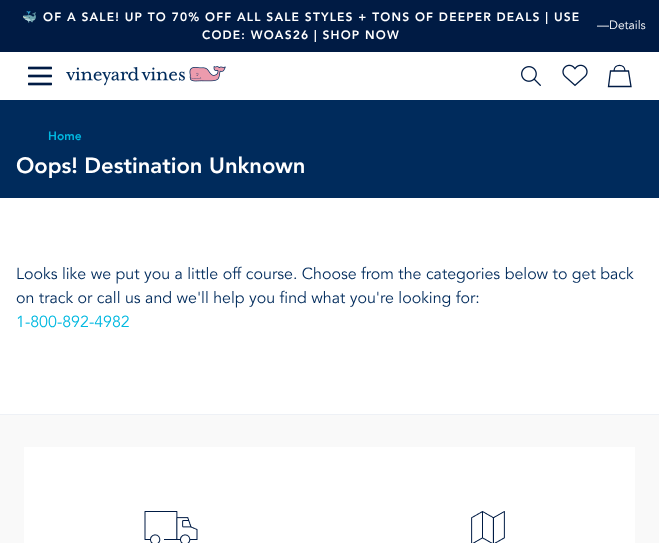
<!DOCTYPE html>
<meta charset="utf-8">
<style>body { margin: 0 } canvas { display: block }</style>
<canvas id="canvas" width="659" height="543"></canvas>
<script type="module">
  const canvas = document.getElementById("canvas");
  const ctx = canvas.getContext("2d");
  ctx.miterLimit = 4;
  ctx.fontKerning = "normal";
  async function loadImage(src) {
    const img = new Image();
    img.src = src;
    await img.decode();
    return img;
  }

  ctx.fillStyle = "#ffffff";
  ctx.fillRect(0, 0, 659, 543);
  ctx.fillStyle = "#001b44";
  ctx.fillRect(0, 0, 659, 52);
  ctx.letterSpacing = "1.17px";
  ctx.font = "bold 12px Noto Color Emoji";
  ctx.fillStyle = "#ffffff";
  ctx.fillText("🐳", 22, 21);
  ctx.font = "900 12px Avenir";
  ctx.fillText("OF A SALE! UP TO 70% OFF ALL SALE STYLES + TONS OF DEEPER DEALS | USE", 43, 21);
  ctx.fillText("CODE: WOAS26 | SHOP NOW", 202, 39);
  ctx.letterSpacing = "0px";
  ctx.font = "12px Avenir";
  ctx.fillText("—Details", 597, 29);
  ctx.drawImage(await loadImage("img1.png"), 28, 66, 24, 20);
  ctx.drawImage(await loadImage("img2.png"), 66, 66, 160, 20);
  ctx.drawImage(await loadImage("img3.png"), 521, 66, 20, 20);
  ctx.drawImage(await loadImage("img4.png"), 562, 64, 26, 23);
  ctx.beginPath();
  ctx.moveTo(610.5, 71);
  ctx.lineTo(628.5, 71);
  ctx.lineTo(631, 86.5);
  ctx.lineTo(608.5, 86.5);
  ctx.closePath();
  ctx.moveTo(625, 71);
  ctx.bezierCurveTo(625, 63.5, 614, 63.5, 614, 71);
  ctx.closePath();
  ctx.strokeStyle = "#001b44";
  ctx.lineWidth = 1.3;
  ctx.stroke();
  ctx.fillStyle = "#002b5c";
  ctx.fillRect(0, 100, 659, 98);
  ctx.font = "900 12px Avenir";
  ctx.fillStyle = "#00b8e0";
  ctx.fillText("Home", 48, 140);
  ctx.font = "900 22px Avenir";
  ctx.fillStyle = "#ffffff";
  ctx.fillText("Oops! Destination Unknown", 16, 173);
  ctx.font = "16px Avenir";
  ctx.fillStyle = "#002b5c";
  ctx.fillText("Looks like we put you a little off course. Choose from the categories below to get back", 16, 279);
  ctx.fillText("on track or call us and we'll help you find what you're looking for:", 16, 303);
  ctx.fillStyle = "#00b8e0";
  ctx.fillText("1-800-892-4982", 16, 327);
  ctx.fillStyle = "#eef1f6";
  ctx.fillRect(0, 414, 659, 1);
  ctx.fillStyle = "#f9f9f9";
  ctx.fillRect(0, 415, 659, 128);
  ctx.fillStyle = "#ffffff";
  ctx.fillRect(24, 447, 611, 96);
  ctx.drawImage(await loadImage("img5.png"), 144, 511, 54, 32);
  ctx.drawImage(await loadImage("img6.png"), 471, 511, 34, 32);
</script>
